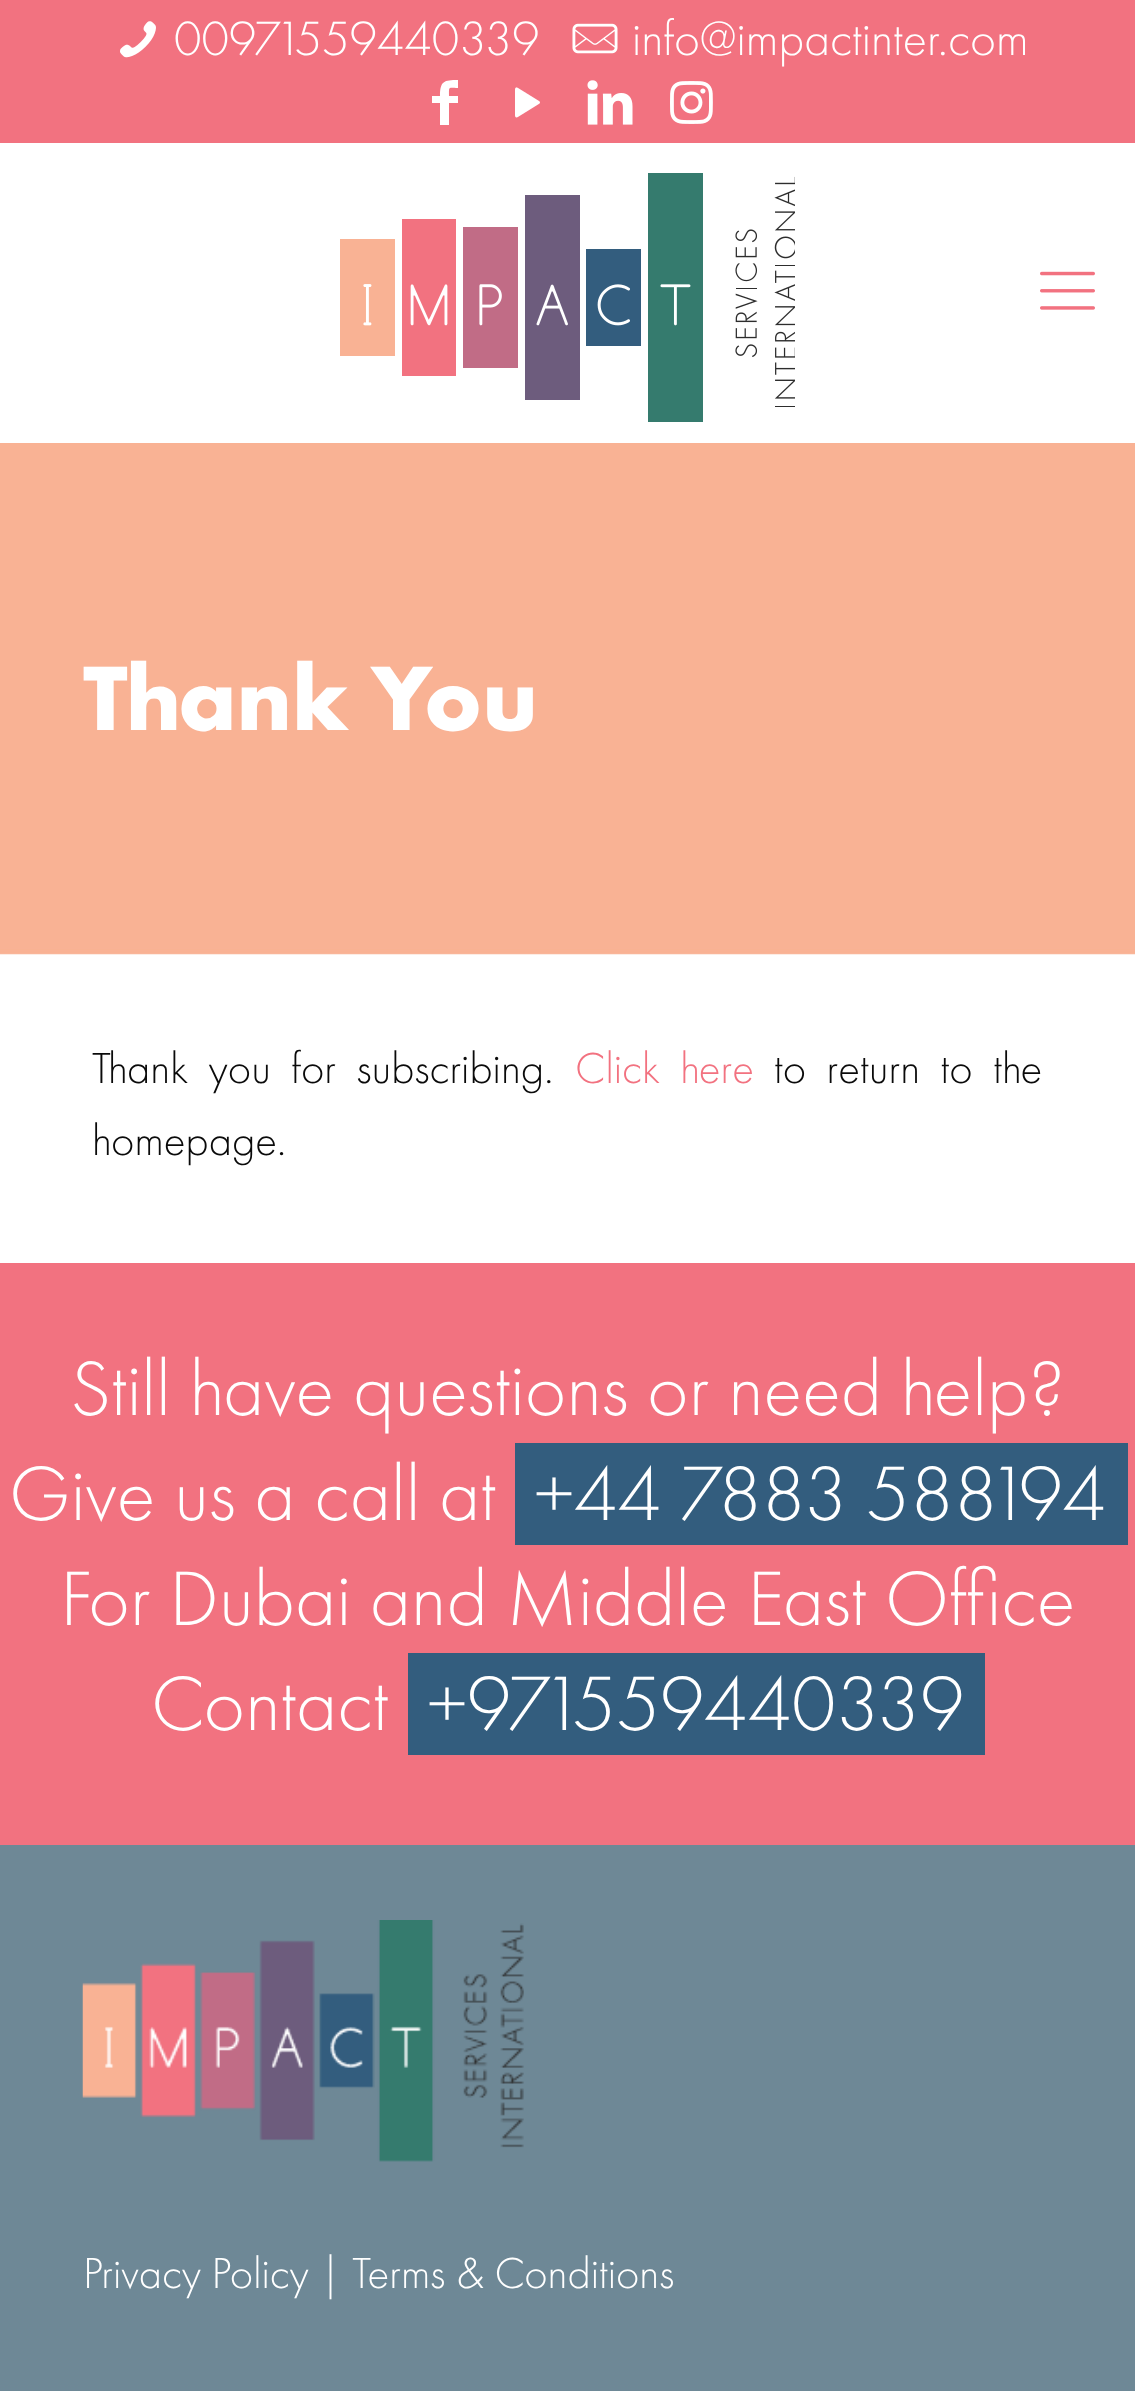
<!DOCTYPE html>
<meta charset="utf-8">
<style>body { margin: 0 } canvas { display: block }</style>
<canvas id="canvas" width="1135" height="2391"></canvas>
<script type="module">
  const canvas = document.getElementById("canvas");
  const ctx = canvas.getContext("2d");
  ctx.miterLimit = 4;
  ctx.fontKerning = "normal";
  async function loadImage(src) {
    const img = new Image();
    img.src = src;
    await img.decode();
    return img;
  }

  ctx.fillStyle = "#ffffff";
  ctx.fillRect(0, 0, 1135, 2391);
  ctx.drawImage(await loadImage("img1.png"), 0, 443, 1135, 512);
  ctx.fillStyle = "#f27280";
  ctx.fillRect(0, 0, 1135, 143);
  ctx.drawImage(await loadImage("img2.png"), 120, 21, 36, 37);
  ctx.font = "300 50px Futura PT";
  ctx.fillStyle = "#ffffff";
  ctx.fillText("00971559440339", 174, 55);
  ctx.drawImage(await loadImage("img3.png"), 572, 23, 46, 31);
  ctx.fillText("info@impactinter.com", 632, 55);
  ctx.beginPath();
  ctx.moveTo(458, 88);
  ctx.bezierCurveTo(448, 88, 449, 86, 449, 96);
  ctx.lineTo(458, 96);
  ctx.lineTo(458, 103);
  ctx.lineTo(449, 103);
  ctx.lineTo(449, 125);
  ctx.lineTo(440, 125);
  ctx.lineTo(440, 103);
  ctx.lineTo(432, 103);
  ctx.lineTo(432, 96);
  ctx.lineTo(440, 96);
  ctx.bezierCurveTo(440, 81, 444, 80, 458, 80);
  ctx.closePath();
  ctx.fill();
  ctx.drawImage(await loadImage("img4.png"), 515, 87, 25, 31);
  ctx.drawImage(await loadImage("img5.png"), 587, 80, 46, 45);
  ctx.drawImage(await loadImage("img6.png"), 670, 81, 43, 43);
  ctx.drawImage(await loadImage("img7.png"), 340, 173, 455, 249);
  ctx.drawImage(await loadImage("img8.png"), 1040, 271, 55, 39);
  ctx.font = "bold 95px Futura PT";
  ctx.fillText("Thank You", 83, 730);
  ctx.wordSpacing = "10px";
  ctx.font = "300 45px Futura PT";
  ctx.fillStyle = "#0a0a0a";
  ctx.fillText("Thank you for subscribing.", 92, 1083);
  ctx.fillStyle = "#f27280";
  ctx.fillText("Click here", 575, 1083);
  ctx.fillStyle = "#0a0a0a";
  ctx.fillText("to return to the", 774, 1083);
  ctx.wordSpacing = "0px";
  ctx.fillText("homepage.", 92, 1155);
  ctx.fillStyle = "#f27280";
  ctx.fillRect(0, 1263, 1135, 582);
  ctx.font = "300 80px Futura PT";
  ctx.fillStyle = "#ffffff";
  ctx.fillText("Still have questions or need help?", 70, 1415);
  ctx.fillText("Give us a call at", 9, 1520);
  ctx.fillStyle = "#335d7e";
  ctx.fillRect(515, 1443, 613, 102);
  ctx.fillStyle = "#ffffff";
  ctx.fillText("+44 7883 588194", 534, 1520);
  ctx.fillText("For Dubai and Middle East Office", 60, 1625);
  ctx.fillText("Contact", 151, 1730);
  ctx.fillStyle = "#335d7e";
  ctx.fillRect(408, 1653, 577, 102);
  ctx.fillStyle = "#ffffff";
  ctx.fillText("+971559440339", 427, 1730);
  ctx.fillStyle = "#6e8896";
  ctx.fillRect(0, 1845, 1135, 546);
  ctx.drawImage(await loadImage("img9.png"), 82, 1920, 442, 242);
  ctx.font = "300 45px Futura PT";
  ctx.fillStyle = "#ffffff";
  ctx.fillText("Privacy Policy | Terms & Conditions", 83, 2288);
</script>
